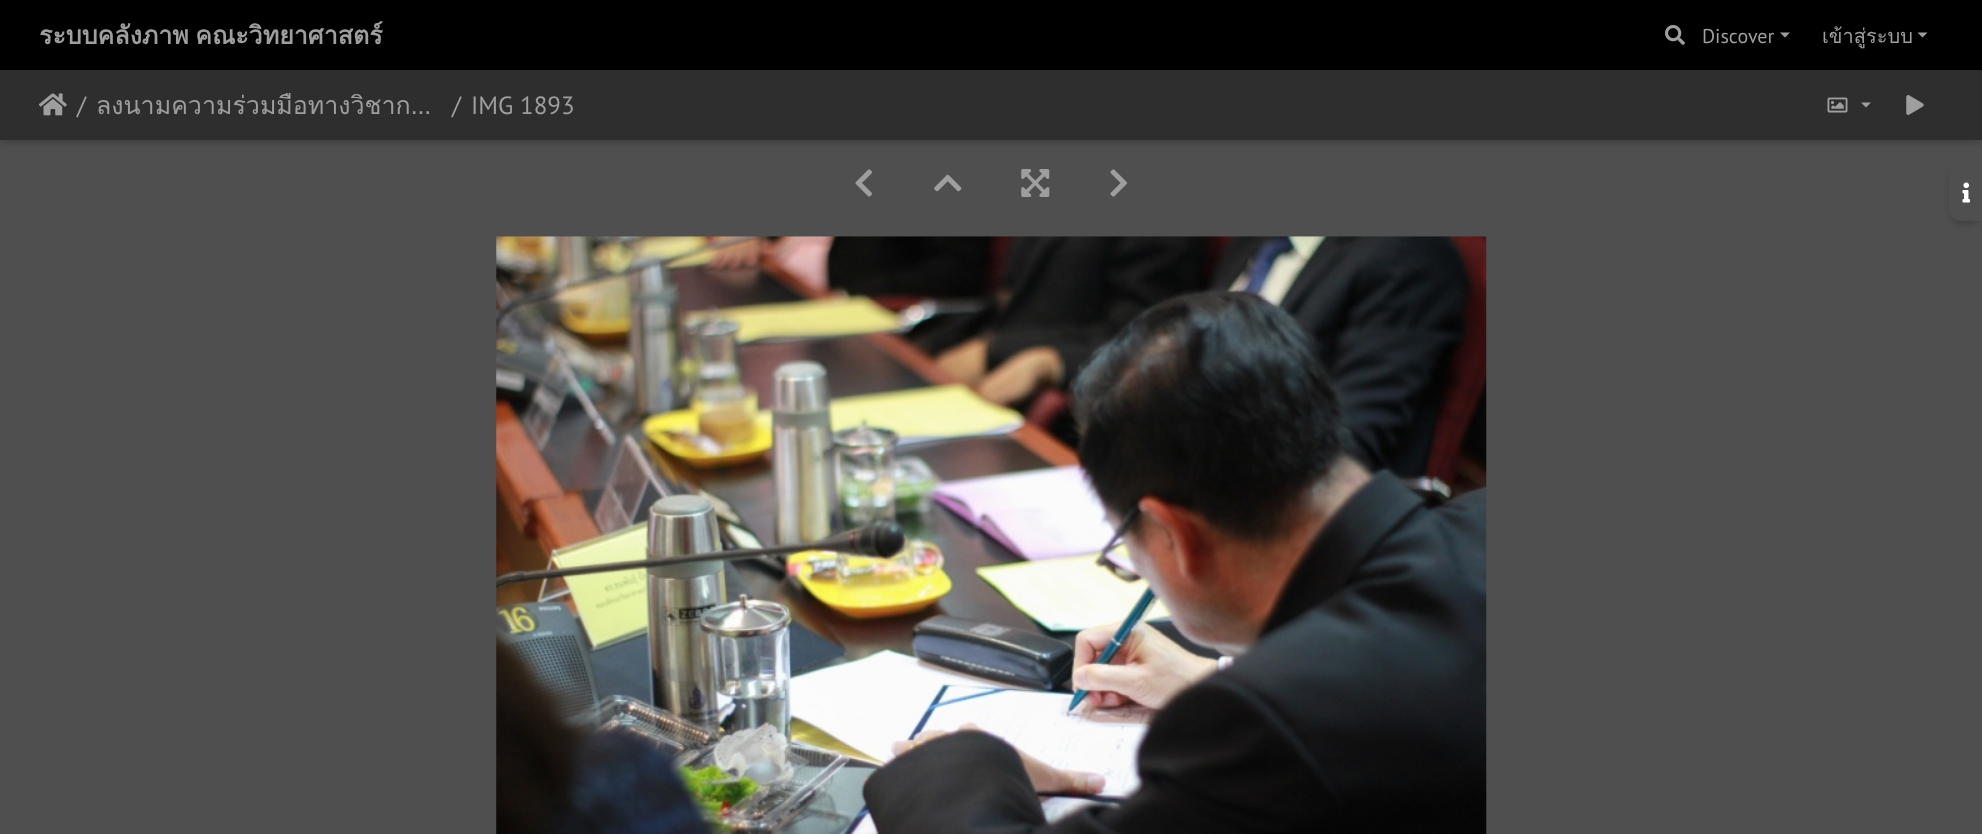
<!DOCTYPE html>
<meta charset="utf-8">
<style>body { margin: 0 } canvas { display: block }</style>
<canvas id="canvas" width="1982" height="834"></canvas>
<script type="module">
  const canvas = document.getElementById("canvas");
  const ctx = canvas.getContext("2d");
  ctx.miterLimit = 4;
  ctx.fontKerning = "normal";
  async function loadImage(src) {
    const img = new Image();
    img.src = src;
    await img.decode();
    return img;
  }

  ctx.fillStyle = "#4f4f4f";
  ctx.fillRect(0, 0, 1982, 834);
  ctx.fillStyle = "rgba(0, 0, 0, 0.2)";
  ctx.filter = "blur(3px)";
  ctx.beginPath();
  ctx.rect(1, 75, 1980, 68);
  ctx.fill();
  ctx.filter = "none";
  ctx.fillStyle = "#000000";
  ctx.fillRect(0, 0, 1982, 70);
  ctx.wordSpacing = "-2px";
  ctx.font = "bold 25px Loma";
  ctx.fillStyle = "#9e9e9e";
  ctx.fillText("ระบบคลังภาพ คณะวิทยาศาสตร์", 39, 44);
  ctx.drawImage(await loadImage("img1.png"), 1665, 25, 20, 20);
  ctx.wordSpacing = "0px";
  ctx.font = "20px PT Sans";
  ctx.fillText("Discover", 1702, 43);
  ctx.beginPath();
  ctx.moveTo(1780, 32.5);
  ctx.lineTo(1790, 32.5);
  ctx.lineTo(1785, 37.5);
  ctx.closePath();
  ctx.fill();
  ctx.font = "20px Loma";
  ctx.fillText("เข้าสู่ระบบ", 1822, 43);
  ctx.beginPath();
  ctx.moveTo(1917.5, 32.5);
  ctx.lineTo(1927.5, 32.5);
  ctx.lineTo(1922.5, 37.5);
  ctx.closePath();
  ctx.fill();
  ctx.fillStyle = "#2e2e2e";
  ctx.fillRect(0, 70, 1982, 70);
  ctx.drawImage(await loadImage("img2.png"), 39, 93, 28, 23);
  ctx.font = "25px PT Sans";
  ctx.fillStyle = "#9e9e9e";
  ctx.fillText("/", 77, 114);
  ctx.wordSpacing = "-1px";
  ctx.font = "25px Loma";
  ctx.fillText("ลงนามความร่วมมือทางวิชาก…", 96, 114);
  ctx.wordSpacing = "0px";
  ctx.font = "25px PT Sans";
  ctx.fillText("/", 452, 114);
  ctx.fillText("IMG 1893", 471, 114);
  ctx.drawImage(await loadImage("img3.png"), 1827, 97, 21, 16);
  ctx.beginPath();
  ctx.moveTo(1861, 102.5);
  ctx.lineTo(1871, 102.5);
  ctx.lineTo(1866, 107.5);
  ctx.closePath();
  ctx.fill();
  ctx.drawImage(await loadImage("img4.png"), 1906, 95, 18, 20);
  ctx.drawImage(await loadImage("img5.png"), 855, 169, 17, 28);
  ctx.drawImage(await loadImage("img6.png"), 934, 174, 28, 18);
  ctx.drawImage(await loadImage("img7.png"), 1021, 169, 29, 28);
  ctx.drawImage(await loadImage("img8.png"), 1110, 169, 17, 28);
  ctx.fillStyle = "rgba(0, 0, 0, 0.2)";
  ctx.filter = "blur(3px)";
  ctx.beginPath();
  ctx.roundRect(1950, 169, 31, 55, 11);
  ctx.fill();
  ctx.filter = "none";
  ctx.fillStyle = "#4f4f4f";
  ctx.beginPath();
  ctx.moveTo(1962, 164);
  ctx.lineTo(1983, 164);
  ctx.lineTo(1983, 221);
  ctx.lineTo(1962, 221);
  ctx.bezierCurveTo(1955, 221, 1949, 215, 1949, 208);
  ctx.lineTo(1949, 177);
  ctx.bezierCurveTo(1949, 170, 1955, 164, 1962, 164);
  ctx.closePath();
  ctx.fill();
  ctx.beginPath();
  ctx.moveTo(1961, 164);
  ctx.lineTo(1982, 164);
  ctx.lineTo(1982, 221);
  ctx.lineTo(1961, 221);
  ctx.bezierCurveTo(1954, 221, 1949, 216, 1949, 209);
  ctx.lineTo(1949, 176);
  ctx.bezierCurveTo(1949, 169, 1954, 164, 1961, 164);
  ctx.closePath();
  ctx.moveTo(1961, 165);
  ctx.lineTo(1982, 165);
  ctx.lineTo(1982, 220);
  ctx.lineTo(1961, 220);
  ctx.bezierCurveTo(1955, 220, 1950, 215, 1950, 209);
  ctx.lineTo(1950, 176);
  ctx.bezierCurveTo(1950, 170, 1955, 165, 1961, 165);
  ctx.closePath();
  ctx.fill("evenodd");
  ctx.drawImage(await loadImage("img9.png"), 1962, 182, 8, 21);
  ctx.drawImage(await loadImage("img10.png"), 496, 236, 991, 598);
</script>
